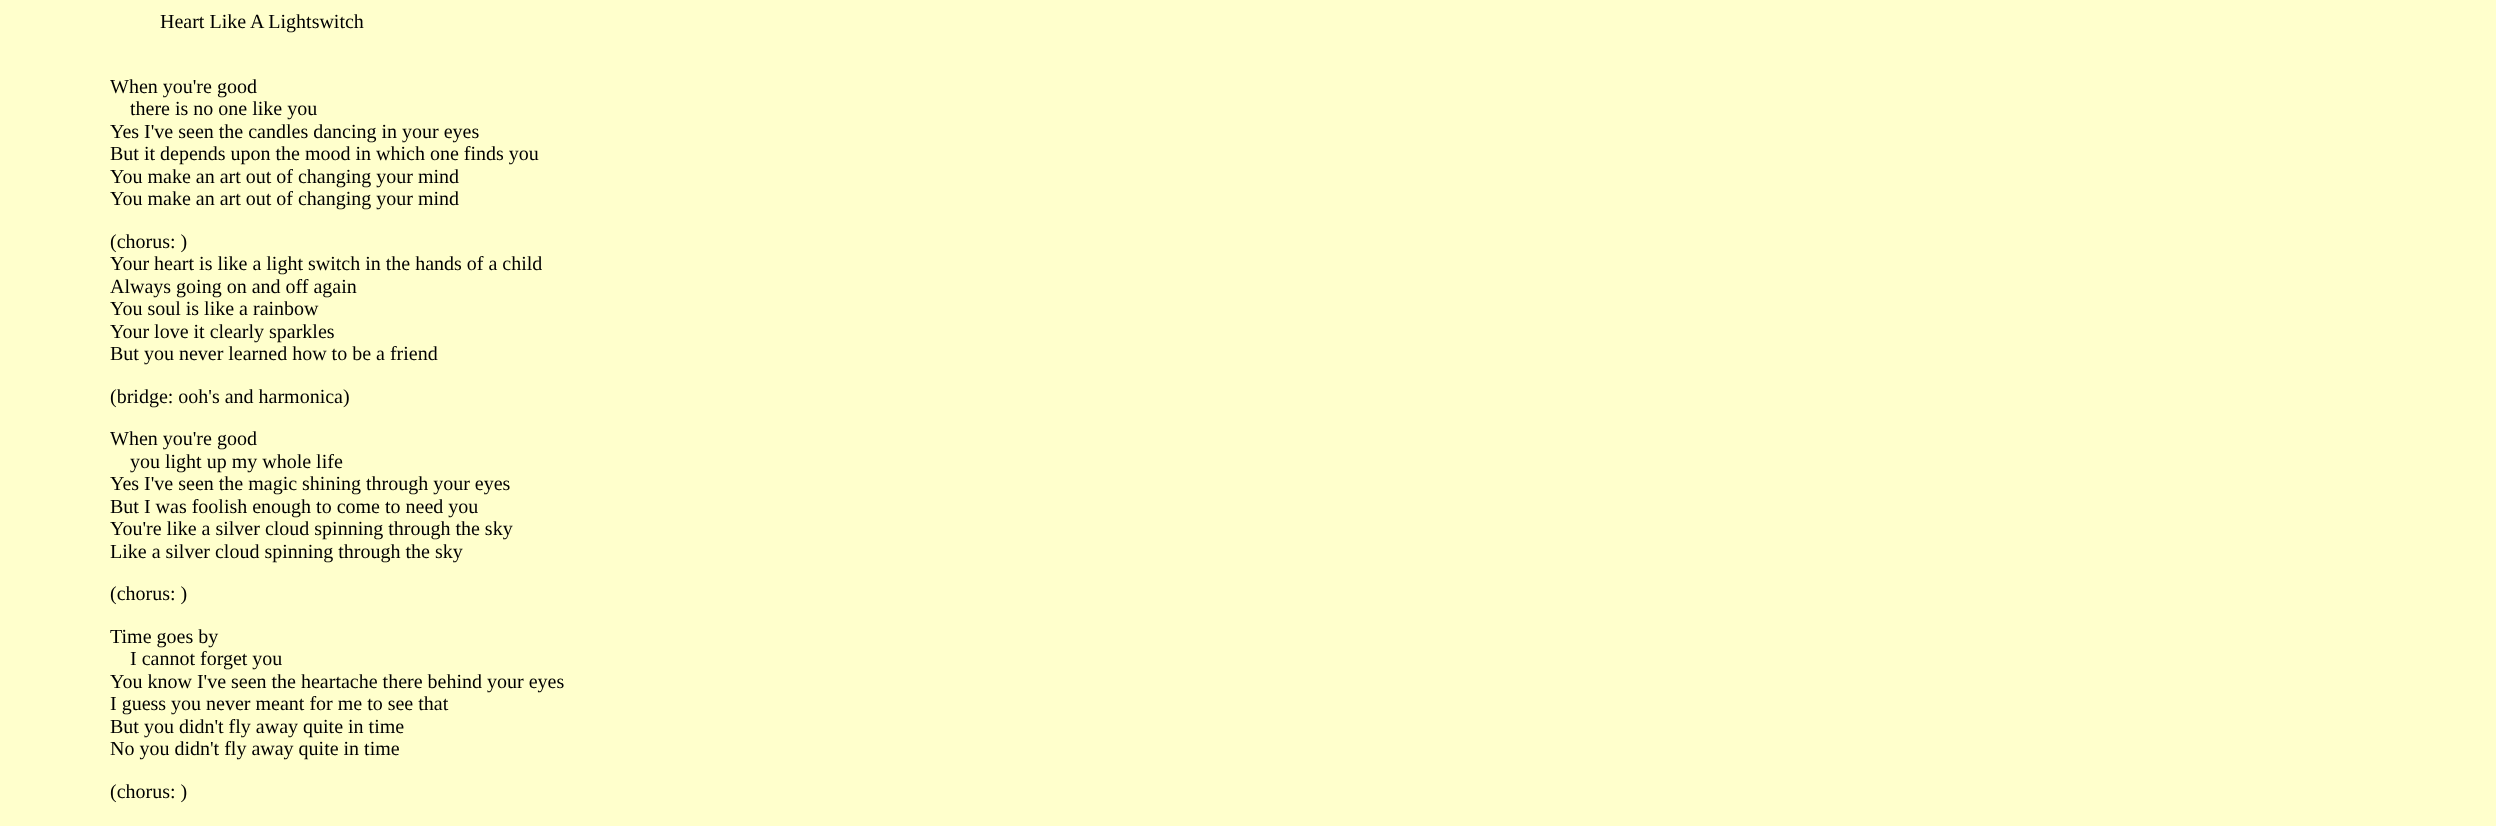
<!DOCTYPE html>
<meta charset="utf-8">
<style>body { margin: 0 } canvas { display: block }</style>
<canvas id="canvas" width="2496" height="826"></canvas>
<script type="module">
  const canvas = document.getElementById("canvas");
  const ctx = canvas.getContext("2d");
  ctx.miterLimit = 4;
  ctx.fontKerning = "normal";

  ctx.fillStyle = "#ffffcc";
  ctx.fillRect(0, 0, 2496, 826);
  ctx.font = "20px Liberation Serif";
  ctx.fillStyle = "#000000";
  ctx.fillText("Heart Like A Lightswitch", 160, 28);
  ctx.fillText("When you're good", 110, 93);
  ctx.fillText("there is no one like you", 130, 115);
  ctx.fillText("Yes I've seen the candles dancing in your eyes", 110, 138);
  ctx.fillText("But it depends upon the mood in which one finds you", 110, 160);
  ctx.fillText("You make an art out of changing your mind", 110, 183);
  ctx.fillText("You make an art out of changing your mind", 110, 205);
  ctx.fillText("(chorus: )", 110, 248);
  ctx.fillText("Your heart is like a light switch in the hands of a child", 110, 270);
  ctx.fillText("Always going on and off again", 110, 293);
  ctx.fillText("You soul is like a rainbow", 110, 315);
  ctx.fillText("Your love it clearly sparkles", 110, 338);
  ctx.fillText("But you never learned how to be a friend", 110, 360);
  ctx.fillText("(bridge: ooh's and harmonica)", 110, 403);
  ctx.fillText("When you're good", 110, 445);
  ctx.fillText("you light up my whole life", 130, 468);
  ctx.fillText("Yes I've seen the magic shining through your eyes", 110, 490);
  ctx.fillText("But I was foolish enough to come to need you", 110, 513);
  ctx.fillText("You're like a silver cloud spinning through the sky", 110, 535);
  ctx.fillText("Like a silver cloud spinning through the sky", 110, 558);
  ctx.fillText("(chorus: )", 110, 600);
  ctx.fillText("Time goes by", 110, 643);
  ctx.fillText("I cannot forget you", 130, 665);
  ctx.fillText("You know I've seen the heartache there behind your eyes", 110, 688);
  ctx.fillText("I guess you never meant for me to see that", 110, 710);
  ctx.fillText("But you didn't fly away quite in time", 110, 733);
  ctx.fillText("No you didn't fly away quite in time", 110, 755);
  ctx.fillText("(chorus: )", 110, 798);
</script>
